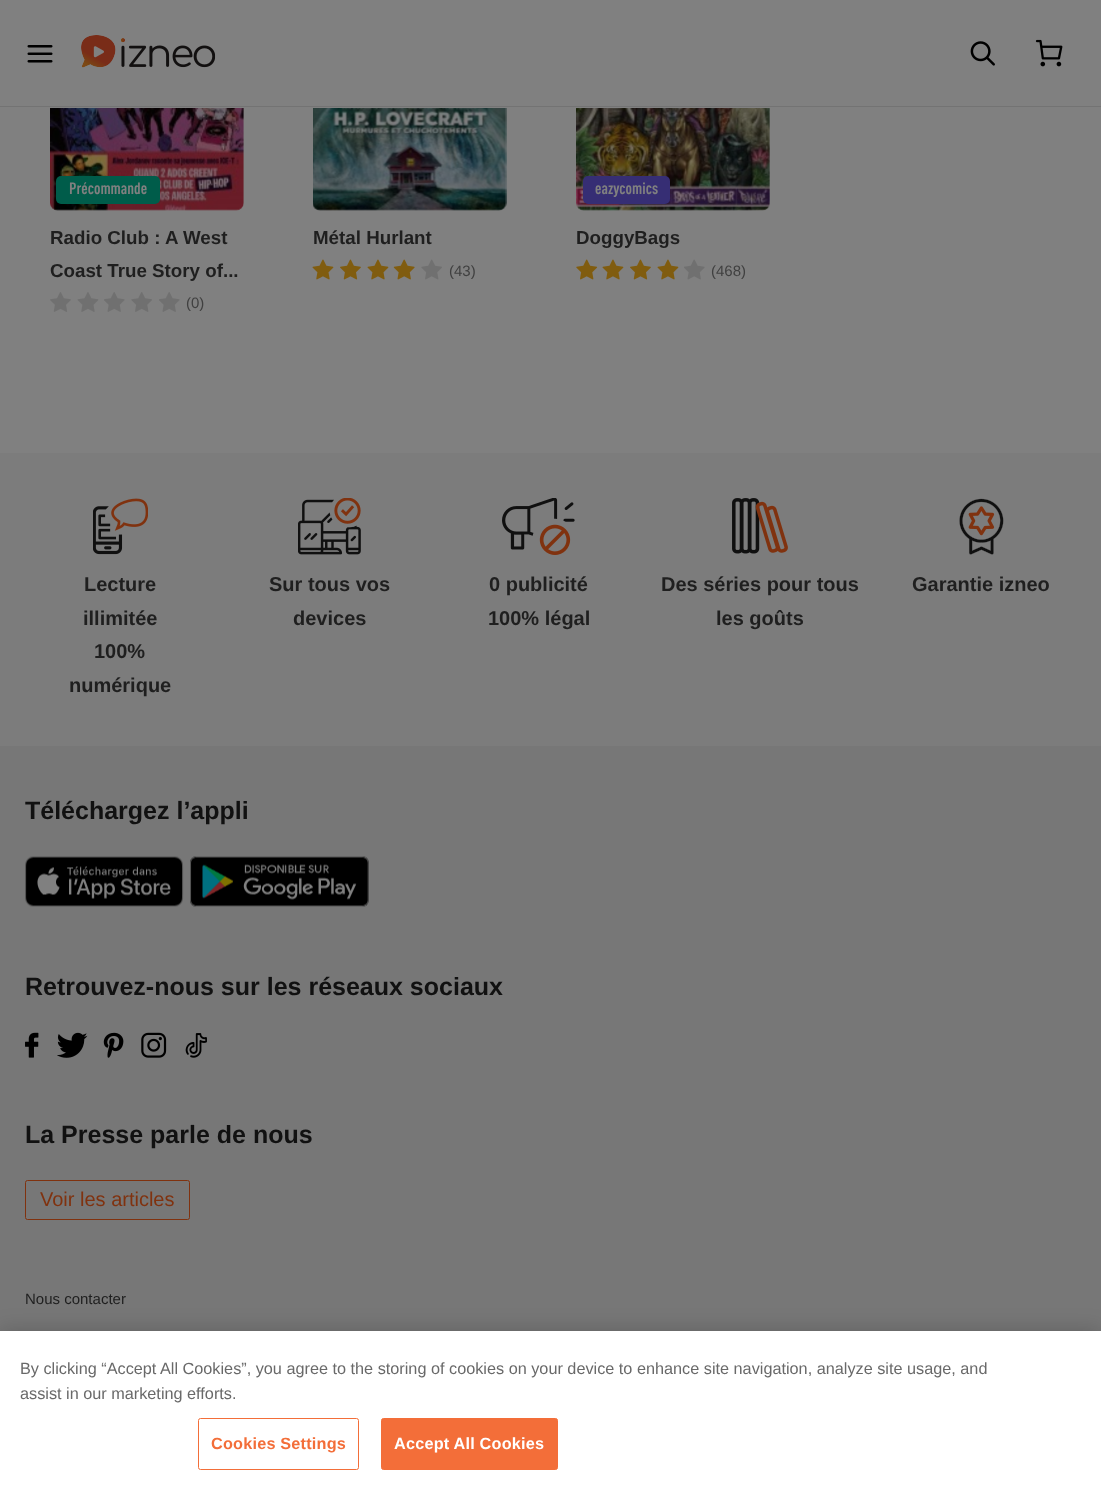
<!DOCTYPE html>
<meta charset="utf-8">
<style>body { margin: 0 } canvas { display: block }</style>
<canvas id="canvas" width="1101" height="1490"></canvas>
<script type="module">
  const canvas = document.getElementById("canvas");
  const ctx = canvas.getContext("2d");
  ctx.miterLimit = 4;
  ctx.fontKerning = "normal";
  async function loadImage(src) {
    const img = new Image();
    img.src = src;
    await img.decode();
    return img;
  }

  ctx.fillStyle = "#808080";
  ctx.fillRect(0, 0, 1101, 1490);
  ctx.fillStyle = "#737373";
  ctx.fillRect(0, 106, 1101, 1);
  ctx.drawImage(await loadImage("img1.png"), 27, 45, 26, 18);
  ctx.drawImage(await loadImage("img2.png"), 81, 35, 135, 33);
  ctx.drawImage(await loadImage("img3.png"), 970, 41, 25, 25);
  ctx.drawImage(await loadImage("img4.png"), 1035, 39, 28, 28);
  ctx.drawImage(await loadImage("img5.png"), 50, 108, 194, 103);
  ctx.fillStyle = "#005c4a";
  ctx.beginPath();
  ctx.roundRect(56, 176, 104, 28, 5);
  ctx.fill();
  ctx.font = "bold 16.25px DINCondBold";
  ctx.fillStyle = "#808080";
  ctx.fillText("Précommande", 69, 194);
  ctx.font = "bold 18.75px Liberation Sans";
  ctx.fillStyle = "#1f1f1f";
  ctx.fillText("Radio Club : A West", 50, 244);
  ctx.fillText("Coast True Story of...", 50, 277);
  ctx.drawImage(await loadImage("img6.png"), 50, 292, 21, 20);
  ctx.drawImage(await loadImage("img7.png"), 77, 292, 22, 20);
  ctx.drawImage(await loadImage("img8.png"), 104, 292, 21, 20);
  ctx.drawImage(await loadImage("img9.png"), 131, 292, 21, 20);
  ctx.drawImage(await loadImage("img8.png"), 159, 292, 21, 20);
  ctx.font = "15px Liberation Sans";
  ctx.fillStyle = "#404040";
  ctx.fillText("(0)", 186, 308);
  ctx.drawImage(await loadImage("img10.png"), 313, 108, 194, 103);
  ctx.font = "bold 18.75px Liberation Sans";
  ctx.fillStyle = "#1f1f1f";
  ctx.fillText("Métal Hurlant", 313, 244);
  ctx.drawImage(await loadImage("img11.png"), 312, 259, 22, 21);
  ctx.drawImage(await loadImage("img12.png"), 340, 259, 21, 21);
  ctx.drawImage(await loadImage("img11.png"), 367, 259, 22, 21);
  ctx.drawImage(await loadImage("img13.png"), 393, 259, 22, 21);
  ctx.drawImage(await loadImage("img14.png"), 421, 259, 21, 21);
  ctx.font = "15px Liberation Sans";
  ctx.fillStyle = "#404040";
  ctx.fillText("(43)", 449, 276);
  ctx.drawImage(await loadImage("img15.png"), 576, 108, 194, 103);
  ctx.fillStyle = "#362e74";
  ctx.beginPath();
  ctx.roundRect(583, 176, 87, 28, 5);
  ctx.fill();
  ctx.font = "bold 16.25px DINCondBold";
  ctx.fillStyle = "#808080";
  ctx.fillText("eazycomics", 595, 194);
  ctx.font = "bold 18.75px Liberation Sans";
  ctx.fillStyle = "#1f1f1f";
  ctx.fillText("DoggyBags", 576, 244);
  ctx.drawImage(await loadImage("img16.png"), 576, 259, 22, 21);
  ctx.drawImage(await loadImage("img11.png"), 602, 259, 22, 21);
  ctx.drawImage(await loadImage("img12.png"), 630, 259, 21, 21);
  ctx.drawImage(await loadImage("img11.png"), 657, 259, 22, 21);
  ctx.drawImage(await loadImage("img17.png"), 684, 259, 21, 21);
  ctx.font = "15px Liberation Sans";
  ctx.fillStyle = "#404040";
  ctx.fillText("(468)", 711, 276);
  ctx.fillStyle = "#777777";
  ctx.fillRect(0, 746, 1101, 585);
  ctx.fillStyle = "#7c7c7c";
  ctx.fillRect(0, 453, 1101, 293);
  ctx.drawImage(await loadImage("img18.png"), 93, 498, 55, 57);
  ctx.font = "bold 20px Liberation Sans";
  ctx.fillStyle = "#1f1f1f";
  ctx.fillText("Lecture", 84, 591);
  ctx.fillText("illimitée", 83, 625);
  ctx.fillText("100%", 94, 658);
  ctx.fillText("numérique", 69, 692);
  ctx.drawImage(await loadImage("img19.png"), 298, 498, 63, 57);
  ctx.fillText("Sur tous vos", 269, 591);
  ctx.fillText("devices", 293, 625);
  ctx.drawImage(await loadImage("img20.png"), 502, 498, 73, 57);
  ctx.fillText("0 publicité", 489, 591);
  ctx.fillText("100% légal", 488, 625);
  ctx.drawImage(await loadImage("img21.png"), 732, 498, 56, 56);
  ctx.fillText("Des séries pour tous", 661, 591);
  ctx.fillText("les goûts", 716, 625);
  ctx.drawImage(await loadImage("img22.png"), 959, 498, 45, 57);
  ctx.fillText("Garantie izneo", 912, 591);
  ctx.font = "bold 25px Liberation Sans";
  ctx.fillStyle = "#111111";
  ctx.fillText("Téléchargez l’appli", 25, 819);
  ctx.drawImage(await loadImage("img23.png"), 25, 856, 159, 51);
  ctx.drawImage(await loadImage("img24.png"), 190, 856, 179, 51);
  ctx.fillText("Retrouvez-nous sur les réseaux sociaux", 25, 995);
  ctx.drawImage(await loadImage("img25.png"), 25, 1032, 14, 26);
  ctx.drawImage(await loadImage("img26.png"), 57, 1032, 31, 26);
  ctx.drawImage(await loadImage("img27.png"), 103, 1032, 21, 26);
  ctx.drawImage(await loadImage("img28.png"), 141, 1032, 26, 26);
  ctx.drawImage(await loadImage("img29.png"), 185, 1033, 22, 25);
  ctx.fillText("La Presse parle de nous", 25, 1143);
  ctx.beginPath();
  ctx.roundRect(25.5, 1180.5, 164, 39, 2);
  ctx.strokeStyle = "#80320f";
  ctx.stroke();
  ctx.font = "20px Liberation Sans";
  ctx.fillStyle = "#80320f";
  ctx.fillText("Voir les articles", 40, 1206);
  ctx.font = "15px Liberation Sans";
  ctx.fillStyle = "#1f1f1f";
  ctx.fillText("Nous contacter", 25, 1304);
  ctx.fillStyle = "rgba(0, 0, 0, 0.2)";
  ctx.filter = "blur(11px)";
  ctx.beginPath();
  ctx.rect(0, 1331, 1101, 159);
  ctx.fill();
  ctx.filter = "none";
  ctx.fillStyle = "#ffffff";
  ctx.fillRect(0, 1331, 1101, 159);
  ctx.font = "16.25px Liberation Sans";
  ctx.fillStyle = "#696969";
  ctx.fillText("By clicking “Accept All Cookies”, you agree to the storing of cookies on your device to enhance site navigation, analyze site usage, and", 20, 1374);
  ctx.fillText("assist in our marketing efforts.", 20, 1399);
  ctx.beginPath();
  ctx.roundRect(198.5, 1418.5, 160, 51, 2);
  ctx.strokeStyle = "#f36e39";
  ctx.stroke();
  ctx.letterSpacing = "0.2px";
  ctx.font = "bold 16.25px Liberation Sans";
  ctx.fillStyle = "#f36e39";
  ctx.fillText("Cookies Settings", 211, 1449);
  ctx.beginPath();
  ctx.roundRect(381.5, 1418.5, 176, 51, 2);
  ctx.fill();
  ctx.stroke();
  ctx.fillStyle = "#ffffff";
  ctx.fillText("Accept All Cookies", 394, 1449);
</script>
